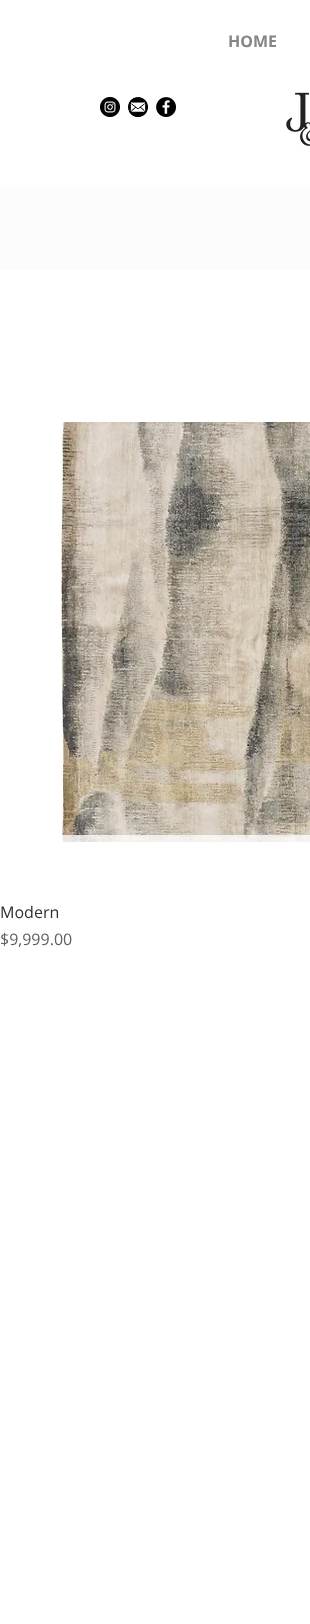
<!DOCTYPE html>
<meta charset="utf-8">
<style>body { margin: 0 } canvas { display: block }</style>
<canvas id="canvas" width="310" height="1624"></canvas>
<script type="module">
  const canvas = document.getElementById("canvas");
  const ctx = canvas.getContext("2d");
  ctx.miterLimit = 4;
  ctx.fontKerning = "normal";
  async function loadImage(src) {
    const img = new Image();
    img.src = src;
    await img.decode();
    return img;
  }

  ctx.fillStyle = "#ffffff";
  ctx.fillRect(0, 0, 310, 1624);
  ctx.font = "bold 16px Open Sans";
  ctx.fillStyle = "#858585";
  ctx.fillText("HOME", 228, 47);
  ctx.drawImage(await loadImage("img1.png"), 100, 97, 20, 20);
  ctx.drawImage(await loadImage("img2.png"), 128, 97, 20, 20);
  ctx.drawImage(await loadImage("img3.png"), 156, 97, 20, 20);
  ctx.drawImage(await loadImage("img4.png"), 286, 92, 24, 54);
  ctx.fillStyle = "#fcfcfc";
  ctx.fillRect(0, 187, 310, 83);
  ctx.drawImage(await loadImage("img5.png"), 61, 422, 249, 420);
  ctx.fillStyle = "rgba(255, 255, 255, 0.75)";
  ctx.fillRect(61, 835, 249, 7);
  ctx.font = "16px Open Sans";
  ctx.fillStyle = "#303030";
  ctx.fillText("Modern", 0, 918);
  ctx.fillStyle = "#606060";
  ctx.fillText("$9,999.00", 0, 945);
</script>
